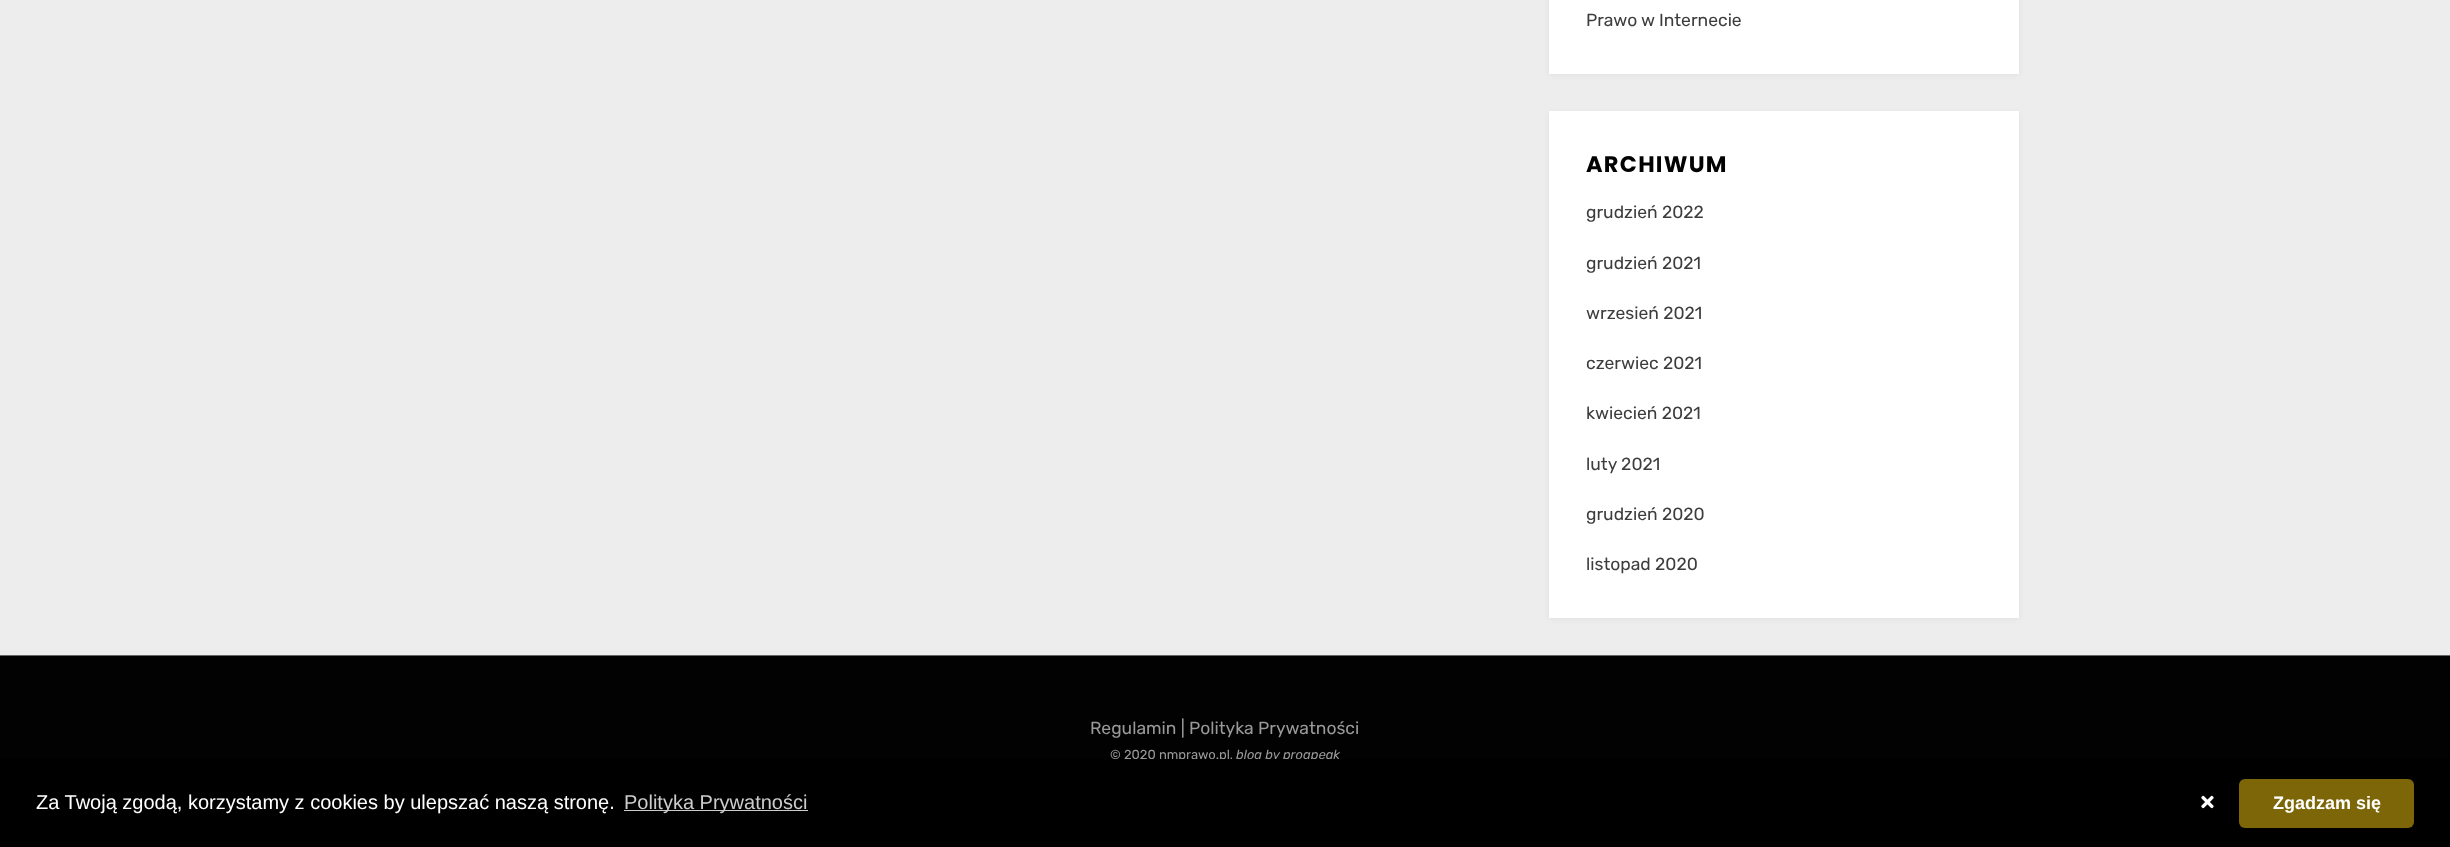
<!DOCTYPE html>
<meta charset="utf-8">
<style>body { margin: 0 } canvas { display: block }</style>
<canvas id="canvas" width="2450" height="847"></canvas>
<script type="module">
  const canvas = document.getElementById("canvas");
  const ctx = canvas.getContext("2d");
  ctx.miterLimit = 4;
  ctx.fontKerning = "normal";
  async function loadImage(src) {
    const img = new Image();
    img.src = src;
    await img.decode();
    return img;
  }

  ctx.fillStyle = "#ededed";
  ctx.fillRect(0, 0, 2450, 847);
  ctx.fillStyle = "rgba(0, 0, 1, 0.05)";
  ctx.filter = "blur(3px)";
  ctx.beginPath();
  ctx.rect(1549, -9, 470, 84);
  ctx.fill();
  ctx.filter = "none";
  ctx.fillStyle = "#ffffff";
  ctx.fillRect(1549, 0, 470, 74);
  ctx.font = "17.5px Rubik";
  ctx.fillStyle = "#3d3d3d";
  ctx.fillText("Prawo w Internecie", 1586, 26);
  ctx.fillStyle = "rgba(0, 0, 1, 0.05)";
  ctx.filter = "blur(3px)";
  ctx.beginPath();
  ctx.rect(1549, 113, 470, 506);
  ctx.fill();
  ctx.filter = "none";
  ctx.fillStyle = "#ffffff";
  ctx.fillRect(1549, 111, 470, 507);
  ctx.letterSpacing = "1.25px";
  ctx.font = "bold 22.5px Poppins";
  ctx.fillStyle = "#020202";
  ctx.fillText("ARCHIWUM", 1586, 172);
  ctx.letterSpacing = "0px";
  ctx.font = "17.5px Rubik";
  ctx.fillStyle = "#3d3d3d";
  ctx.fillText("grudzień 2022", 1586, 218);
  ctx.fillText("grudzień 2021", 1586, 269);
  ctx.fillText("wrzesień 2021", 1586, 319);
  ctx.fillText("czerwiec 2021", 1586, 369);
  ctx.fillText("kwiecień 2021", 1586, 419);
  ctx.fillText("luty 2021", 1586, 470);
  ctx.fillText("grudzień 2020", 1586, 520);
  ctx.fillText("listopad 2020", 1586, 570);
  ctx.fillStyle = "#020202";
  ctx.fillRect(0, 656, 2450, 103);
  ctx.fillStyle = "#666666";
  ctx.fillRect(0, 655, 2450, 1);
  ctx.fillStyle = "#999999";
  ctx.fillText("Regulamin | Polityka Prywatności", 1090, 734);
  ctx.font = "13px Rubik";
  ctx.fillText("© 2020 nmprawo.pl,", 1110, 759);
  ctx.font = "italic 13px Rubik";
  ctx.fillText("blog by progpeak", 1236, 759);
  ctx.fillStyle = "#000000";
  ctx.fillRect(0, 759, 2450, 88);
  ctx.font = "20px Liberation Sans";
  ctx.fillStyle = "#ffffff";
  ctx.fillText("Za Twoją zgodą, korzystamy z cookies by ulepszać naszą stronę.", 36, 809);
  ctx.fillStyle = "#cccccc";
  ctx.fillRect(624, 810, 184, 1);
  ctx.fillText("Polityka Prywatności", 624, 809);
  ctx.drawImage(await loadImage("img1.png"), 2201, 795, 13, 14);
  ctx.fillStyle = "#7d6608";
  ctx.beginPath();
  ctx.roundRect(2239, 779, 175, 49, 6);
  ctx.fill();
  ctx.font = "bold 18px Liberation Sans";
  ctx.fillStyle = "#ffffff";
  ctx.fillText("Zgadzam się", 2273, 809);
</script>
